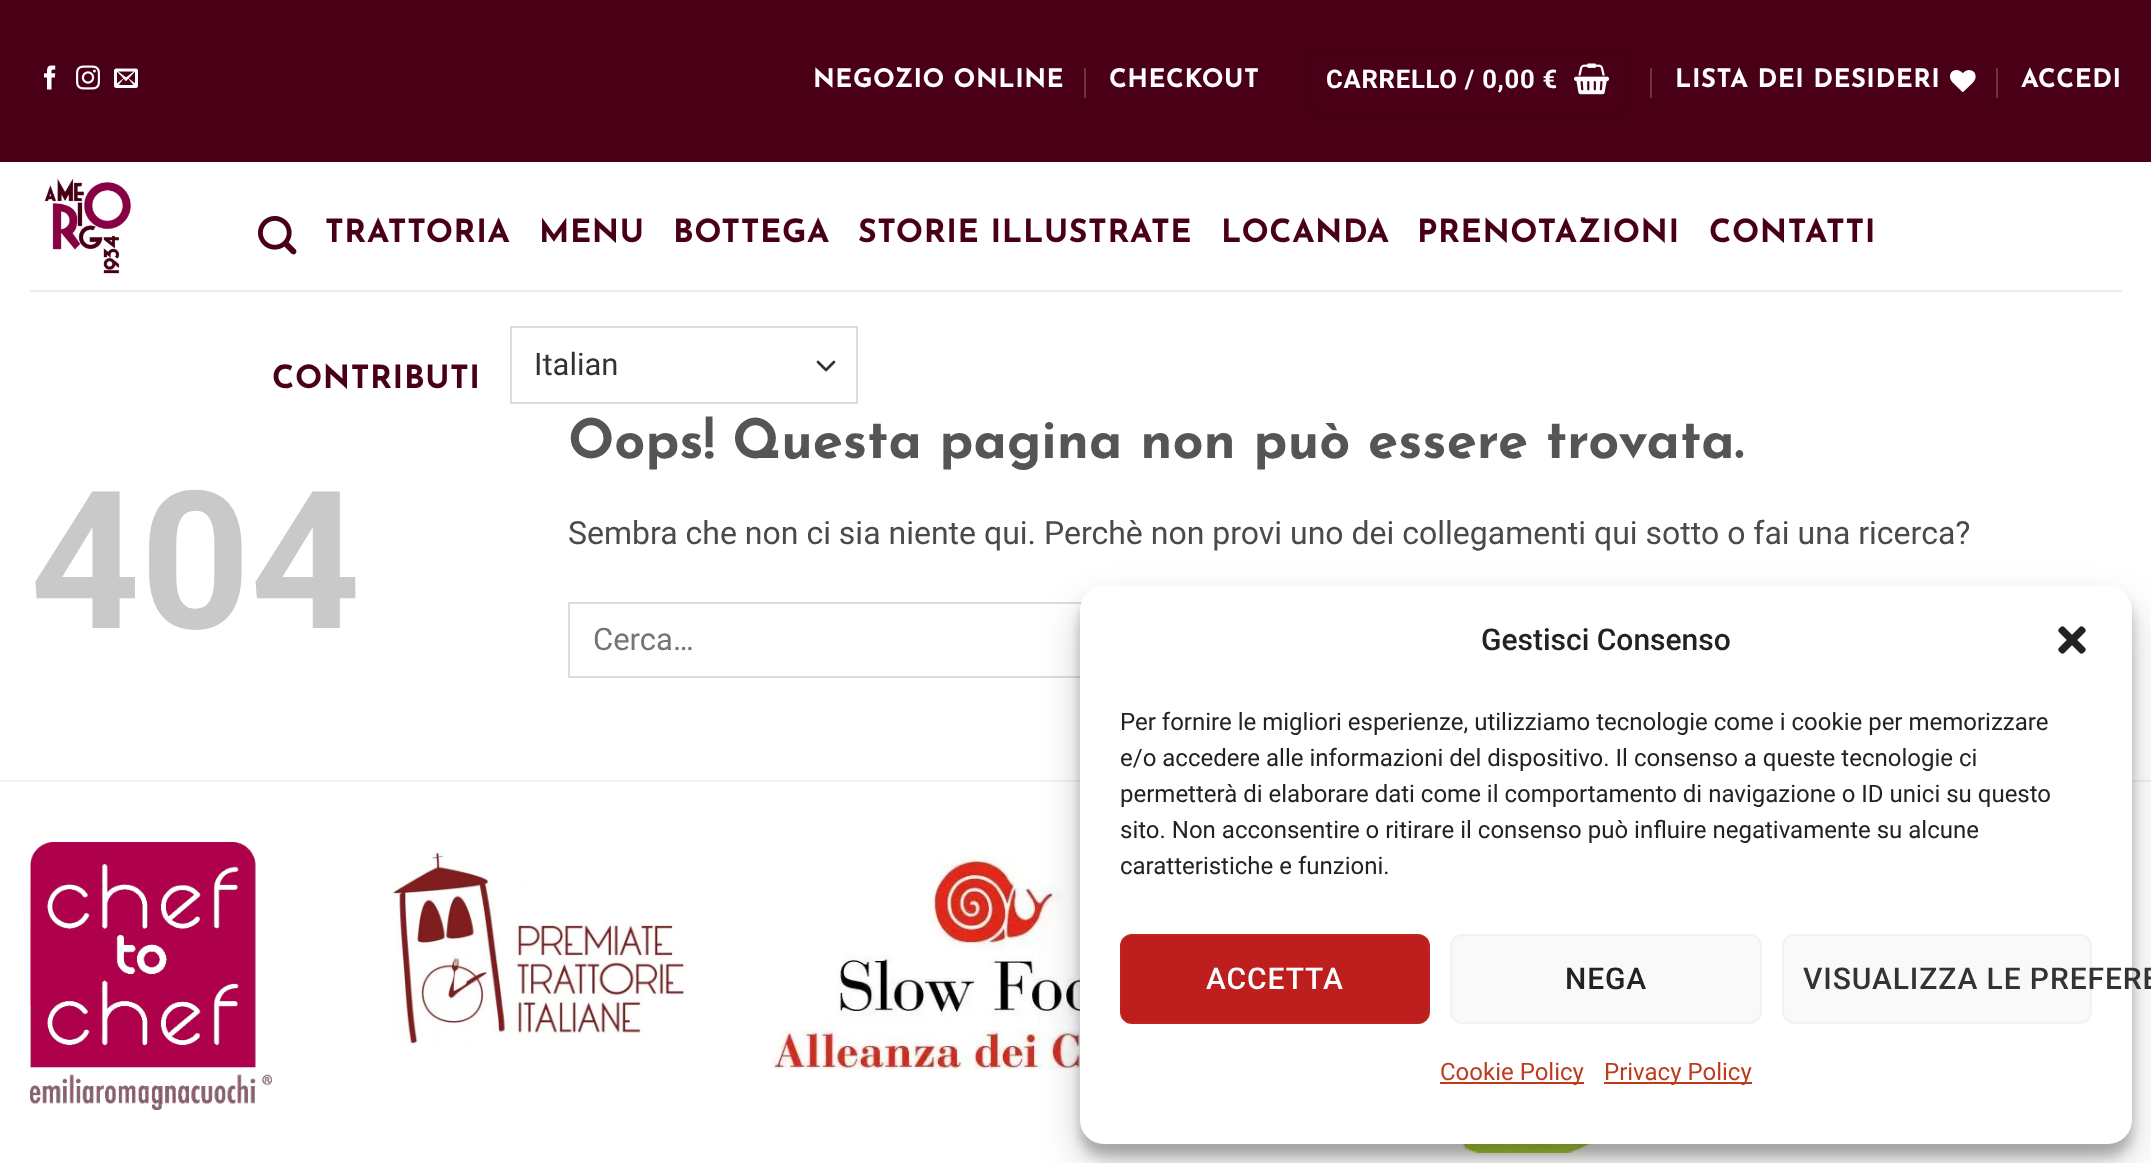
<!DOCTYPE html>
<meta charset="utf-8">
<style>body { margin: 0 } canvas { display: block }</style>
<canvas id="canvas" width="2151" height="1163"></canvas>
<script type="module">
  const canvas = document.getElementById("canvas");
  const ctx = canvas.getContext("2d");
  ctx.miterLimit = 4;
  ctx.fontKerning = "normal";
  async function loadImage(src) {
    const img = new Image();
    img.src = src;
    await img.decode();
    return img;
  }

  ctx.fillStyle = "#ffffff";
  ctx.fillRect(0, 0, 2151, 1163);
  ctx.fillStyle = "#490016";
  ctx.fillRect(0, 0, 2151, 162);
  ctx.drawImage(await loadImage("img1.png"), 44, 65, 12, 25);
  ctx.drawImage(await loadImage("img2.png"), 76, 65, 24, 25);
  ctx.drawImage(await loadImage("img3.png"), 114, 68, 24, 20);
  ctx.letterSpacing = "0.5px";
  ctx.font = "100 25.6px Josefin Sans";
  ctx.fillStyle = "#ffffff";
  ctx.fillText("NEGOZIO ONLINE", 813, 87);
  ctx.fillStyle = "#6d3345";
  ctx.fillRect(1084, 68, 2, 30);
  ctx.fillStyle = "#ffffff";
  ctx.fillText("CHECKOUT", 1109, 87);
  ctx.beginPath();
  ctx.roundRect(1309, 49, 318, 64, 9);
  ctx.strokeStyle = "#450015";
  ctx.lineWidth = 2;
  ctx.stroke();
  ctx.letterSpacing = "0.75px";
  ctx.font = "bold 25.6px Roboto";
  ctx.fillText("CARRELLO / 0,00 €", 1326, 88);
  ctx.drawImage(await loadImage("img4.png"), 1574, 63, 36, 32);
  ctx.fillStyle = "#6d3345";
  ctx.fillRect(1650, 68, 2, 30);
  ctx.letterSpacing = "0.5px";
  ctx.font = "100 25.6px Josefin Sans";
  ctx.fillStyle = "#ffffff";
  ctx.fillText("LISTA DEI DESIDERI", 1675, 87);
  ctx.drawImage(await loadImage("img5.png"), 1950, 70, 26, 22);
  ctx.fillStyle = "#6d3345";
  ctx.fillRect(1996, 68, 2, 30);
  ctx.fillStyle = "#ffffff";
  ctx.fillText("ACCEDI", 2021, 87);
  ctx.drawImage(await loadImage("img6.png"), 44, 178, 87, 96);
  ctx.drawImage(await loadImage("img7.png"), 258, 216, 39, 39);
  ctx.letterSpacing = "0.6px";
  ctx.font = "100 32px Josefin Sans";
  ctx.fillStyle = "#490016";
  ctx.fillText("TRATTORIA", 325, 242);
  ctx.fillText("MENU", 539, 242);
  ctx.fillText("BOTTEGA", 673, 242);
  ctx.fillText("STORIE ILLUSTRATE", 858, 242);
  ctx.fillText("LOCANDA", 1221, 242);
  ctx.fillText("PRENOTAZIONI", 1417, 242);
  ctx.fillText("CONTATTI", 1709, 242);
  ctx.fillText("CONTRIBUTI", 272, 388);
  ctx.beginPath();
  ctx.moveTo(818, 362);
  ctx.lineTo(826, 370);
  ctx.lineTo(834, 362);
  ctx.strokeStyle = "#333333";
  ctx.lineWidth = 2.7;
  ctx.lineCap = "round";
  ctx.lineJoin = "round";
  ctx.stroke();
  ctx.strokeStyle = "#dddddd";
  ctx.lineWidth = 2;
  ctx.lineJoin = "miter";
  ctx.strokeRect(511, 327, 346, 76);
  ctx.letterSpacing = "0px";
  ctx.font = "31px Roboto";
  ctx.fillStyle = "#333333";
  ctx.fillText("Italian", 534, 375);
  ctx.fillStyle = "#ededed";
  ctx.fillRect(30, 290, 2092, 2);
  ctx.font = "bold 192px Roboto";
  ctx.fillStyle = "#c9c9c9";
  ctx.fillText("404", 30, 628);
  ctx.font = "100 54.4px Josefin Sans";
  ctx.fillStyle = "#555555";
  ctx.fillText("Oops! Questa pagina non può essere trovata.", 568, 458);
  ctx.font = "32px Roboto";
  ctx.fillStyle = "#4a4a4a";
  ctx.fillText("Sembra che non ci sia niente qui. Perchè non provi uno dei collegamenti qui sotto o fai una ricerca?", 568, 544);
  ctx.strokeRect(569, 603, 1472, 74);
  ctx.font = "31px Roboto";
  ctx.fillStyle = "#757575";
  ctx.fillText("Cerca…", 593, 650);
  ctx.fillStyle = "#f2f2f2";
  ctx.fillRect(0, 780, 2151, 2);
  ctx.drawImage(await loadImage("img8.png"), 30, 842, 242, 268);
  ctx.drawImage(await loadImage("img9.png"), 392, 852, 296, 194);
  ctx.drawImage(await loadImage("img10.png"), 770, 857, 310, 213);
  ctx.drawImage(await loadImage("img11.png"), 1376, 1144, 303, 11);
  ctx.fillStyle = "rgba(0, 0, 0, 0.23)";
  ctx.filter = "blur(6px)";
  ctx.beginPath();
  ctx.roundRect(1080, 598, 1052, 558, 24);
  ctx.fill();
  ctx.filter = "none";
  ctx.fillStyle = "rgba(0, 0, 0, 0.19)";
  ctx.filter = "blur(20px)";
  ctx.beginPath();
  ctx.roundRect(1080, 606, 1052, 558, 24);
  ctx.fill();
  ctx.filter = "none";
  ctx.fillStyle = "#ffffff";
  ctx.beginPath();
  ctx.roundRect(1080, 586, 1052, 558, 24);
  ctx.fill();
  ctx.font = "500 30px Roboto";
  ctx.fillStyle = "#222222";
  ctx.fillText("Gestisci Consenso", 1481, 650);
  ctx.drawImage(await loadImage("img12.png"), 2058, 626, 28, 28);
  ctx.font = "24px Roboto";
  ctx.fillText("Per fornire le migliori esperienze, utilizziamo tecnologie come i cookie per memorizzare", 1120, 730);
  ctx.fillText("e/o accedere alle informazioni del dispositivo. Il consenso a queste tecnologie ci", 1120, 766);
  ctx.fillText("permetterà di elaborare dati come il comportamento di navigazione o ID unici su questo", 1120, 802);
  ctx.fillText("sito. Non acconsentire o ritirare il consenso può influire negativamente su alcune", 1120, 838);
  ctx.fillText("caratteristiche e funzioni.", 1120, 874);
  ctx.fillStyle = "#be1e1e";
  ctx.beginPath();
  ctx.roundRect(1121, 935, 308, 88, 11);
  ctx.fill();
  ctx.strokeStyle = "#be251e";
  ctx.stroke();
  ctx.letterSpacing = "0.9px";
  ctx.font = "500 30px Roboto";
  ctx.fillStyle = "#ffffff";
  ctx.fillText("ACCETTA", 1206, 989);
  ctx.fillStyle = "#f9f9f9";
  ctx.beginPath();
  ctx.roundRect(1451, 935, 310, 88, 11);
  ctx.fill();
  ctx.strokeStyle = "#f2f2f2";
  ctx.stroke();
  ctx.fillStyle = "#222222";
  ctx.fillText("NEGA", 1565, 989);
  ctx.fillStyle = "#f9f9f9";
  ctx.beginPath();
  ctx.roundRect(1783, 935, 308, 88, 11);
  ctx.fill();
  ctx.stroke();
  ctx.fillStyle = "#333333";
  ctx.fillText("VISUALIZZA LE PREFERE", 1803, 989);
  ctx.fillStyle = "#be3c1e";
  ctx.fillRect(1440, 1082, 144, 2);
  ctx.letterSpacing = "0px";
  ctx.font = "24px Roboto";
  ctx.fillText("Cookie Policy", 1440, 1080);
  ctx.fillRect(1604, 1082, 148, 2);
  ctx.fillText("Privacy Policy", 1604, 1080);
</script>
